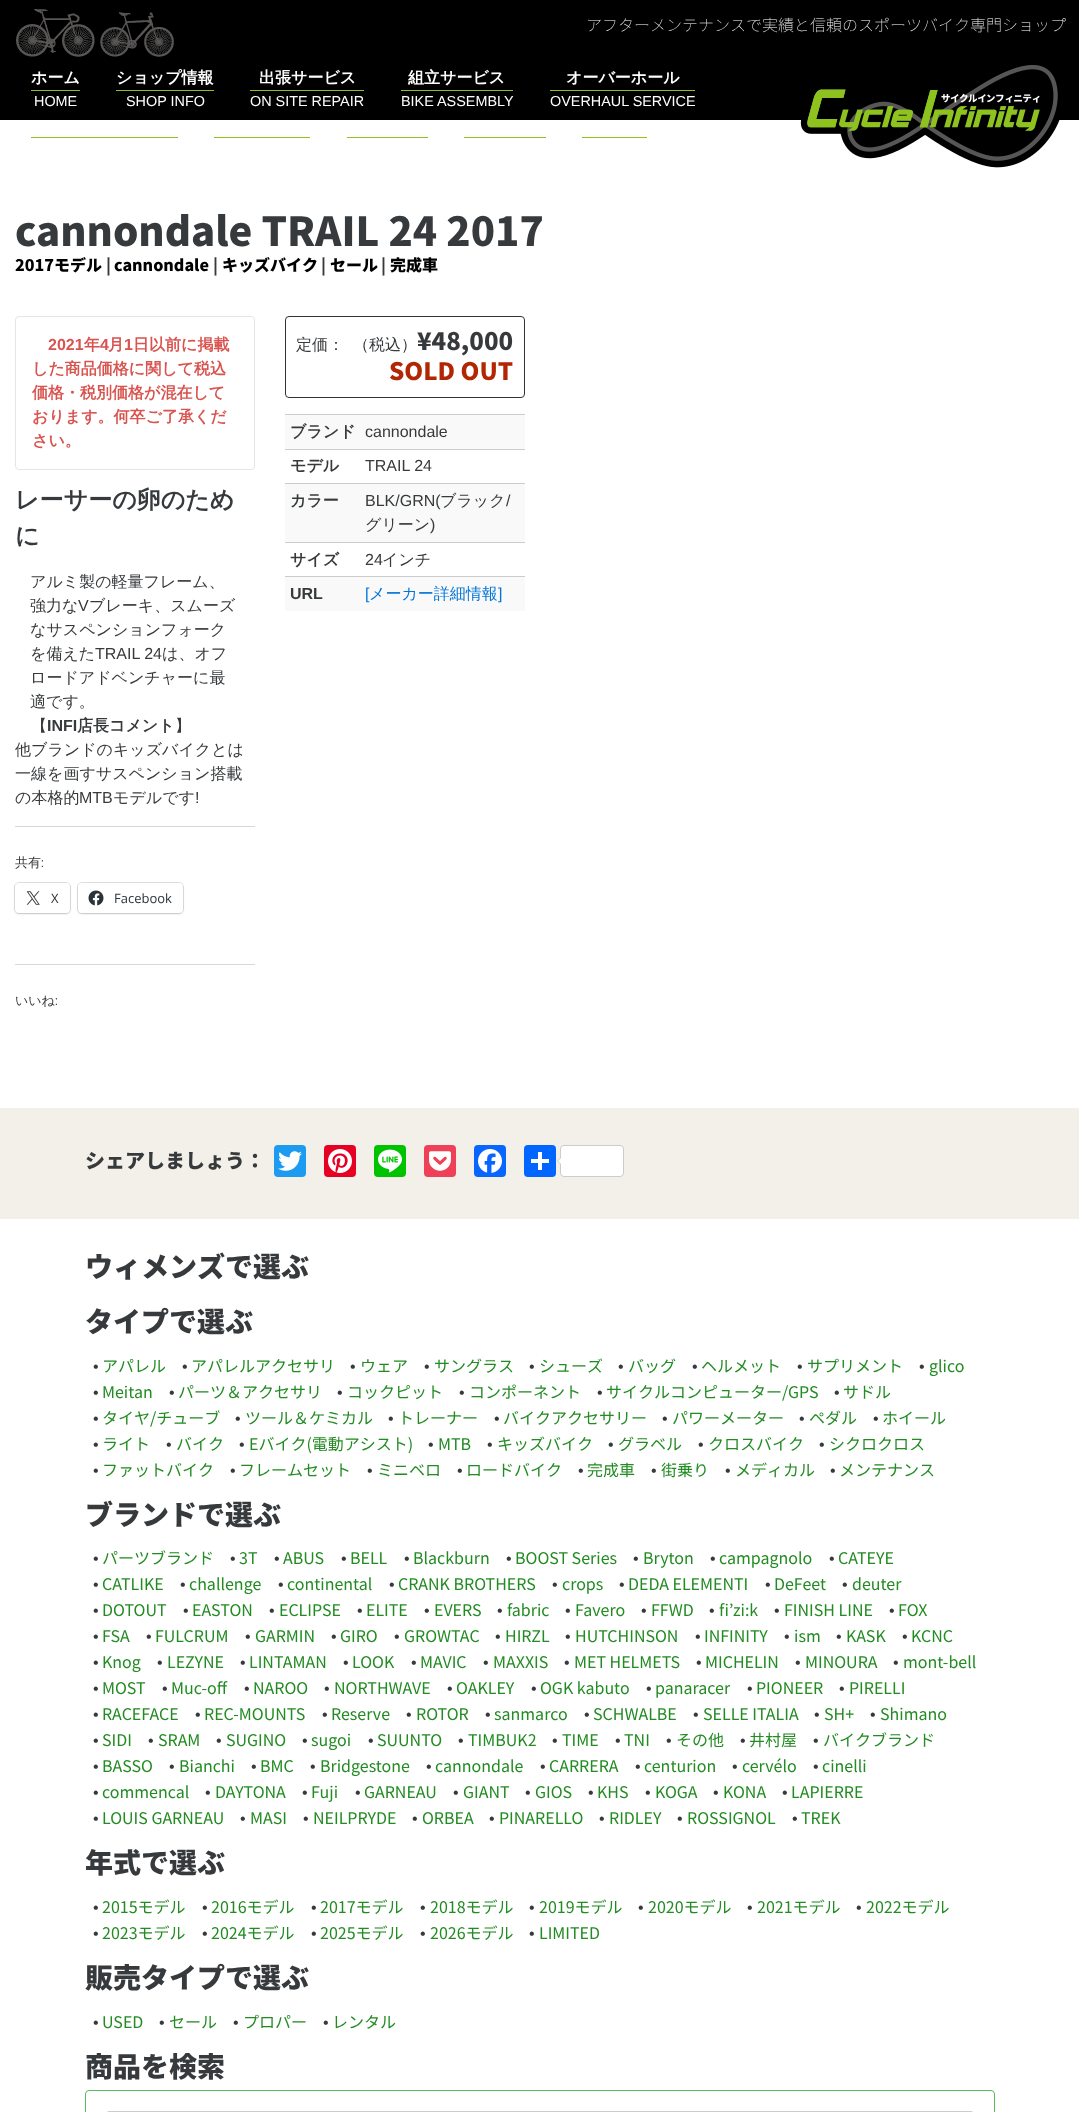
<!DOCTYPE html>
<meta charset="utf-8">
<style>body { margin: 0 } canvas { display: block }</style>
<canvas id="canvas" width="1079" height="2112"></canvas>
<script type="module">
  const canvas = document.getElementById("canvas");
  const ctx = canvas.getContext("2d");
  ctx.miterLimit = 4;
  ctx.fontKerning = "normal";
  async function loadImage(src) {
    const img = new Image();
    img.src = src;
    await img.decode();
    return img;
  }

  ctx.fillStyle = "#ffffff";
  ctx.fillRect(0, 0, 1079, 2112);
  ctx.fillStyle = "#000000";
  ctx.fillRect(0, 0, 1079, 120);
  ctx.drawImage(await loadImage("img1.png"), 16, 9, 158, 48);
  ctx.font = "100 16px Noto Sans JP";
  ctx.fillStyle = "#ffffff";
  ctx.fillText("アフターメンテナンスで実績と信頼のスポーツバイク専門ショップ", 586, 31);
  ctx.font = "bold 16px WenQuanYi Zen Hei";
  ctx.fillText("ホーム", 31, 83);
  ctx.fillStyle = "#8ec31f";
  ctx.fillRect(31, 90, 49, 1);
  ctx.font = "14.4px Liberation Sans";
  ctx.fillStyle = "#ffffff";
  ctx.fillText("HOME", 34, 106);
  ctx.font = "bold 16px WenQuanYi Zen Hei";
  ctx.fillText("ショップ情報", 116, 83);
  ctx.fillStyle = "#8ec31f";
  ctx.fillRect(116, 90, 98, 1);
  ctx.font = "14.4px Liberation Sans";
  ctx.fillStyle = "#ffffff";
  ctx.fillText("SHOP INFO", 126, 106);
  ctx.font = "bold 16px WenQuanYi Zen Hei";
  ctx.fillText("出張サービス", 259, 83);
  ctx.fillStyle = "#8ec31f";
  ctx.fillRect(250, 90, 114, 1);
  ctx.font = "14.4px Liberation Sans";
  ctx.fillStyle = "#ffffff";
  ctx.fillText("ON SITE REPAIR", 250, 106);
  ctx.font = "bold 16px WenQuanYi Zen Hei";
  ctx.fillText("組立サービス", 408, 83);
  ctx.fillStyle = "#8ec31f";
  ctx.fillRect(401, 90, 112, 1);
  ctx.font = "14.4px Liberation Sans";
  ctx.fillStyle = "#ffffff";
  ctx.fillText("BIKE ASSEMBLY", 401, 106);
  ctx.font = "bold 16px WenQuanYi Zen Hei";
  ctx.fillText("オーバーホール", 566, 83);
  ctx.fillStyle = "#8ec31f";
  ctx.fillRect(550, 90, 145, 1);
  ctx.font = "14.4px Liberation Sans";
  ctx.fillStyle = "#ffffff";
  ctx.fillText("OVERHAUL SERVICE", 550, 106);
  ctx.fillStyle = "#8ec31f";
  ctx.fillRect(31, 137, 147, 1);
  ctx.fillRect(214, 137, 96, 1);
  ctx.fillRect(347, 137, 81, 1);
  ctx.fillRect(464, 137, 82, 1);
  ctx.fillRect(582, 137, 65, 1);
  ctx.drawImage(await loadImage("img2.png"), 800, 65, 260, 103);
  ctx.font = "900 40px Noto Sans JP";
  ctx.fillStyle = "#373a3c";
  ctx.fillText("cannondale TRAIL 24 2017", 15, 246);
  ctx.font = "900 16px Noto Sans JP";
  ctx.fillStyle = "#000000";
  ctx.fillText("2017モデル", 15, 271);
  ctx.fillStyle = "#373a3c";
  ctx.fillText("|", 106, 271);
  ctx.fillStyle = "#000000";
  ctx.fillText("cannondale", 114, 271);
  ctx.fillStyle = "#373a3c";
  ctx.fillText("|", 213, 271);
  ctx.fillStyle = "#000000";
  ctx.fillText("キッズバイク", 222, 271);
  ctx.fillStyle = "#373a3c";
  ctx.fillText("|", 321, 271);
  ctx.fillStyle = "#000000";
  ctx.fillText("セール", 330, 271);
  ctx.fillStyle = "#373a3c";
  ctx.fillText("|", 381, 271);
  ctx.fillStyle = "#000000";
  ctx.fillText("完成車", 390, 271);
  ctx.beginPath();
  ctx.roundRect(15.5, 316.5, 239, 153, 3.5);
  ctx.strokeStyle = "#e5e5e5";
  ctx.stroke();
  ctx.font = "bold 16px Liberation Sans";
  ctx.fillStyle = "#d9534f";
  ctx.fillText("2021", 48, 350);
  ctx.font = "bold 16px WenQuanYi Zen Hei";
  ctx.fillText("年", 84, 350);
  ctx.font = "bold 16px Liberation Sans";
  ctx.fillText("4", 100, 350);
  ctx.font = "bold 16px WenQuanYi Zen Hei";
  ctx.fillText("月", 108, 350);
  ctx.font = "bold 16px Liberation Sans";
  ctx.fillText("1", 124, 350);
  ctx.font = "bold 16px WenQuanYi Zen Hei";
  ctx.fillText("日以前に掲載", 133, 350);
  ctx.fillText("した商品価格に関して税込", 32, 374);
  ctx.fillText("価格・税別価格が混在して", 32, 398);
  ctx.fillText("おります。何卒ご了承くだ", 32, 422);
  ctx.fillText("さい。", 32, 446);
  ctx.font = "bold 24px WenQuanYi Zen Hei";
  ctx.fillStyle = "#373a3c";
  ctx.fillText("レーサーの卵のため", 15, 508);
  ctx.fillText("に", 15, 544);
  ctx.font = "500 16px WenQuanYi Zen Hei";
  ctx.fillText("アルミ製の軽量フレーム、", 30, 587);
  ctx.fillText("強力な", 30, 611);
  ctx.font = "16px Liberation Sans";
  ctx.fillText("V", 78, 611);
  ctx.font = "500 16px WenQuanYi Zen Hei";
  ctx.fillText("ブレーキ、スムーズ", 89, 611);
  ctx.fillText("なサスペンションフォーク", 30, 635);
  ctx.fillText("を備えた", 30, 659);
  ctx.font = "16px Liberation Sans";
  ctx.fillText("TRAIL 24", 95, 659);
  ctx.font = "500 16px WenQuanYi Zen Hei";
  ctx.fillText("は、オフ", 162, 659);
  ctx.fillText("ロードアドベンチャーに最", 30, 683);
  ctx.fillText("適です。", 30, 707);
  ctx.fillText("【", 31, 731);
  ctx.font = "bold 16px Liberation Sans";
  ctx.fillText("INFI", 47, 731);
  ctx.font = "bold 16px WenQuanYi Zen Hei";
  ctx.fillText("店長コメント", 77, 731);
  ctx.font = "500 16px WenQuanYi Zen Hei";
  ctx.fillText("】", 175, 731);
  ctx.fillText("他ブランドのキッズバイクとは", 15, 755);
  ctx.fillText("一線を画すサスペンション搭載", 15, 779);
  ctx.fillText("の本格的", 15, 803);
  ctx.font = "16px Liberation Sans";
  ctx.fillText("MTB", 79, 803);
  ctx.font = "500 16px WenQuanYi Zen Hei";
  ctx.fillText("モデルです", 113, 803);
  ctx.font = "16px Liberation Sans";
  ctx.fillText("!", 195, 803);
  ctx.fillStyle = "#d7d8d8";
  ctx.fillRect(15, 826, 240, 1);
  ctx.font = "500 13px WenQuanYi Zen Hei";
  ctx.fillStyle = "#373a3c";
  ctx.fillText("共有", 15, 867);
  ctx.font = "13px Montserrat";
  ctx.fillText(":", 41, 867);
  ctx.beginPath();
  ctx.roundRect(14.5, 882.5, 56, 31, 4.5);
  ctx.strokeStyle = "#e0e0e0";
  ctx.stroke();
  ctx.fillStyle = "rgba(0, 0, 0, 0.12)";
  ctx.filter = "blur(1px)";
  ctx.beginPath();
  ctx.roundRect(15, 884, 55, 30, 4);
  ctx.fill();
  ctx.filter = "none";
  ctx.fillStyle = "#ffffff";
  ctx.beginPath();
  ctx.roundRect(15, 883, 55, 30, 4);
  ctx.fill();
  ctx.drawImage(await loadImage("img3.png"), 26, 891, 14, 14);
  ctx.font = "13px Open Sans";
  ctx.fillStyle = "#2c3338";
  ctx.fillText("X", 51, 903);
  ctx.beginPath();
  ctx.roundRect(77.5, 882.5, 106, 31, 4.5);
  ctx.stroke();
  ctx.fillStyle = "rgba(0, 0, 0, 0.12)";
  ctx.filter = "blur(1px)";
  ctx.beginPath();
  ctx.roundRect(78, 884, 105, 30, 4);
  ctx.fill();
  ctx.filter = "none";
  ctx.fillStyle = "#ffffff";
  ctx.beginPath();
  ctx.roundRect(78, 883, 105, 30, 4);
  ctx.fill();
  ctx.drawImage(await loadImage("img4.png"), 88, 890, 16, 16);
  ctx.fillStyle = "#2c3338";
  ctx.fillText("Facebook", 114, 903);
  ctx.fillStyle = "#d7d8d8";
  ctx.fillRect(15, 964, 240, 1);
  ctx.font = "500 13px WenQuanYi Zen Hei";
  ctx.fillStyle = "#373a3c";
  ctx.fillText("いいね", 15, 1005);
  ctx.font = "13px Montserrat";
  ctx.fillText(":", 55, 1005);
  ctx.beginPath();
  ctx.roundRect(285.5, 316.5, 239, 81, 3.5);
  ctx.strokeStyle = "#333333";
  ctx.stroke();
  ctx.font = "500 16px WenQuanYi Zen Hei";
  ctx.fillText("定価：", 296, 350);
  ctx.fillText("（税込）", 353, 350);
  ctx.font = "900 24px Noto Sans JP";
  ctx.fillText("¥48,000", 417, 350);
  ctx.fillStyle = "#b12704";
  ctx.fillText("SOLD OUT", 389, 380);
  ctx.fillStyle = "#f9f9f9";
  ctx.fillRect(285, 415, 240, 34);
  ctx.font = "bold 16px WenQuanYi Zen Hei";
  ctx.fillStyle = "#373a3c";
  ctx.fillText("ブランド", 290, 437);
  ctx.fillStyle = "#cccccc";
  ctx.fillRect(285, 414, 240, 1);
  ctx.font = "16px Liberation Sans";
  ctx.fillStyle = "#373a3c";
  ctx.fillText("cannondale", 365, 437);
  ctx.font = "bold 16px WenQuanYi Zen Hei";
  ctx.fillText("モデル", 290, 471);
  ctx.fillStyle = "#cccccc";
  ctx.fillRect(285, 449, 240, 1);
  ctx.font = "16px Liberation Sans";
  ctx.fillStyle = "#373a3c";
  ctx.fillText("TRAIL 24", 365, 471);
  ctx.fillStyle = "#f9f9f9";
  ctx.fillRect(285, 484, 240, 58);
  ctx.font = "bold 16px WenQuanYi Zen Hei";
  ctx.fillStyle = "#373a3c";
  ctx.fillText("カラー", 290, 506);
  ctx.fillStyle = "#cccccc";
  ctx.fillRect(285, 483, 240, 1);
  ctx.font = "16px Liberation Sans";
  ctx.fillStyle = "#373a3c";
  ctx.fillText("BLK/GRN(", 365, 506);
  ctx.font = "500 16px WenQuanYi Zen Hei";
  ctx.fillText("ブラック", 440, 506);
  ctx.font = "16px Liberation Sans";
  ctx.fillText("/", 506, 506);
  ctx.font = "500 16px WenQuanYi Zen Hei";
  ctx.fillText("グリーン", 365, 530);
  ctx.font = "16px Liberation Sans";
  ctx.fillText(")", 430, 530);
  ctx.font = "bold 16px WenQuanYi Zen Hei";
  ctx.fillText("サイズ", 290, 565);
  ctx.fillStyle = "#cccccc";
  ctx.fillRect(285, 542, 240, 1);
  ctx.font = "16px Liberation Sans";
  ctx.fillStyle = "#373a3c";
  ctx.fillText("24", 365, 565);
  ctx.font = "500 16px WenQuanYi Zen Hei";
  ctx.fillText("インチ", 382, 565);
  ctx.fillStyle = "#f9f9f9";
  ctx.fillRect(285, 577, 240, 34);
  ctx.font = "bold 16px Liberation Sans";
  ctx.fillStyle = "#373a3c";
  ctx.fillText("URL", 290, 599);
  ctx.fillStyle = "#cccccc";
  ctx.fillRect(285, 576, 240, 1);
  ctx.font = "16px Liberation Sans";
  ctx.fillStyle = "#0275d8";
  ctx.fillText("[", 365, 599);
  ctx.font = "500 16px WenQuanYi Zen Hei";
  ctx.fillText("メーカー詳細情報", 369, 599);
  ctx.font = "16px Liberation Sans";
  ctx.fillText("]", 498, 599);
  ctx.fillStyle = "#f2f0e8";
  ctx.fillRect(0, 1108, 1079, 111);
  ctx.font = "900 20px Noto Sans JP";
  ctx.fillStyle = "#373a3c";
  ctx.fillText("シェアしましょう：", 85, 1168);
  ctx.fillStyle = "#1d9bf0";
  ctx.beginPath();
  ctx.roundRect(274, 1145, 32, 32, 4);
  ctx.fill();
  ctx.drawImage(await loadImage("img5.png"), 278, 1151, 24, 20);
  ctx.fillStyle = "#e60023";
  ctx.beginPath();
  ctx.roundRect(324, 1145, 32, 32, 4);
  ctx.fill();
  ctx.drawImage(await loadImage("img6.png"), 328, 1149, 24, 24);
  ctx.fillStyle = "#00c300";
  ctx.beginPath();
  ctx.roundRect(374, 1145, 32, 32, 4);
  ctx.fill();
  ctx.drawImage(await loadImage("img7.png"), 378, 1149, 24, 24);
  ctx.fillStyle = "#ee4056";
  ctx.beginPath();
  ctx.roundRect(424, 1145, 32, 32, 4);
  ctx.fill();
  ctx.drawImage(await loadImage("img8.png"), 429, 1151, 22, 20);
  ctx.fillStyle = "#0866ff";
  ctx.beginPath();
  ctx.roundRect(474, 1145, 32, 32, 4);
  ctx.fill();
  ctx.drawImage(await loadImage("img9.png"), 478, 1149, 24, 24);
  ctx.fillStyle = "#0166ff";
  ctx.beginPath();
  ctx.roundRect(524, 1145, 32, 32, 4);
  ctx.fill();
  ctx.fillStyle = "#ffffff";
  ctx.fillRect(538, 1152, 4, 18);
  ctx.fillRect(531, 1159, 18, 4);
  ctx.beginPath();
  ctx.roundRect(560.5, 1145.5, 63, 31, 3.5);
  ctx.fill();
  ctx.strokeStyle = "#cccccc";
  ctx.stroke();
  ctx.fillStyle = "#cccccc";
  ctx.beginPath();
  ctx.moveTo(561, 1157);
  ctx.lineTo(561, 1165);
  ctx.lineTo(557, 1161);
  ctx.closePath();
  ctx.fill();
  ctx.fillStyle = "#ffffff";
  ctx.beginPath();
  ctx.moveTo(562, 1157);
  ctx.lineTo(562, 1165);
  ctx.lineTo(558, 1161);
  ctx.closePath();
  ctx.fill();
  ctx.font = "900 28px Noto Sans JP";
  ctx.fillStyle = "#373a3c";
  ctx.fillText("ウィメンズで選ぶ", 85, 1277);
  ctx.fillText("タイプで選ぶ", 85, 1332);
  ctx.font = "16px Liberation Sans";
  ctx.fillText("•", 93, 1372);
  ctx.font = "16px Noto Sans JP";
  ctx.fillStyle = "#228b22";
  ctx.fillText("アパレル", 102, 1372);
  ctx.font = "16px Liberation Sans";
  ctx.fillStyle = "#373a3c";
  ctx.fillText("•", 182, 1372);
  ctx.font = "16px Noto Sans JP";
  ctx.fillStyle = "#228b22";
  ctx.fillText("アパレルアクセサリ", 191, 1372);
  ctx.font = "16px Liberation Sans";
  ctx.fillStyle = "#373a3c";
  ctx.fillText("•", 350, 1372);
  ctx.font = "16px Noto Sans JP";
  ctx.fillStyle = "#228b22";
  ctx.fillText("ウェア", 360, 1372);
  ctx.font = "16px Liberation Sans";
  ctx.fillStyle = "#373a3c";
  ctx.fillText("•", 424, 1372);
  ctx.font = "16px Noto Sans JP";
  ctx.fillStyle = "#228b22";
  ctx.fillText("サングラス", 434, 1372);
  ctx.font = "16px Liberation Sans";
  ctx.fillStyle = "#373a3c";
  ctx.fillText("•", 529, 1372);
  ctx.font = "16px Noto Sans JP";
  ctx.fillStyle = "#228b22";
  ctx.fillText("シューズ", 539, 1372);
  ctx.font = "16px Liberation Sans";
  ctx.fillStyle = "#373a3c";
  ctx.fillText("•", 618, 1372);
  ctx.font = "16px Noto Sans JP";
  ctx.fillStyle = "#228b22";
  ctx.fillText("バッグ", 628, 1372);
  ctx.font = "16px Liberation Sans";
  ctx.fillStyle = "#373a3c";
  ctx.fillText("•", 692, 1372);
  ctx.font = "16px Noto Sans JP";
  ctx.fillStyle = "#228b22";
  ctx.fillText("ヘルメット", 701, 1372);
  ctx.font = "16px Liberation Sans";
  ctx.fillStyle = "#373a3c";
  ctx.fillText("•", 797, 1372);
  ctx.font = "16px Noto Sans JP";
  ctx.fillStyle = "#228b22";
  ctx.fillText("サプリメント", 807, 1372);
  ctx.font = "16px Liberation Sans";
  ctx.fillStyle = "#373a3c";
  ctx.fillText("•", 919, 1372);
  ctx.font = "16px Noto Sans JP";
  ctx.fillStyle = "#228b22";
  ctx.fillText("glico", 929, 1372);
  ctx.font = "16px Liberation Sans";
  ctx.fillStyle = "#373a3c";
  ctx.fillText("•", 93, 1398);
  ctx.font = "16px Noto Sans JP";
  ctx.fillStyle = "#228b22";
  ctx.fillText("Meitan", 102, 1398);
  ctx.font = "16px Liberation Sans";
  ctx.fillStyle = "#373a3c";
  ctx.fillText("•", 169, 1398);
  ctx.font = "16px Noto Sans JP";
  ctx.fillStyle = "#228b22";
  ctx.fillText("パーツ＆アクセサリ", 178, 1398);
  ctx.font = "16px Liberation Sans";
  ctx.fillStyle = "#373a3c";
  ctx.fillText("•", 337, 1398);
  ctx.font = "16px Noto Sans JP";
  ctx.fillStyle = "#228b22";
  ctx.fillText("コックピット", 347, 1398);
  ctx.font = "16px Liberation Sans";
  ctx.fillStyle = "#373a3c";
  ctx.fillText("•", 459, 1398);
  ctx.font = "16px Noto Sans JP";
  ctx.fillStyle = "#228b22";
  ctx.fillText("コンポーネント", 469, 1398);
  ctx.font = "16px Liberation Sans";
  ctx.fillStyle = "#373a3c";
  ctx.fillText("•", 597, 1398);
  ctx.font = "16px Noto Sans JP";
  ctx.fillStyle = "#228b22";
  ctx.fillText("サイクルコンピューター/GPS", 606, 1398);
  ctx.font = "16px Liberation Sans";
  ctx.fillStyle = "#373a3c";
  ctx.fillText("•", 834, 1398);
  ctx.font = "16px Noto Sans JP";
  ctx.fillStyle = "#228b22";
  ctx.fillText("サドル", 843, 1398);
  ctx.font = "16px Liberation Sans";
  ctx.fillStyle = "#373a3c";
  ctx.fillText("•", 93, 1424);
  ctx.font = "16px Noto Sans JP";
  ctx.fillStyle = "#228b22";
  ctx.fillText("タイヤ/チューブ", 102, 1424);
  ctx.font = "16px Liberation Sans";
  ctx.fillStyle = "#373a3c";
  ctx.fillText("•", 235, 1424);
  ctx.font = "16px Noto Sans JP";
  ctx.fillStyle = "#228b22";
  ctx.fillText("ツール＆ケミカル", 245, 1424);
  ctx.font = "16px Liberation Sans";
  ctx.fillStyle = "#373a3c";
  ctx.fillText("•", 388, 1424);
  ctx.font = "16px Noto Sans JP";
  ctx.fillStyle = "#228b22";
  ctx.fillText("トレーナー", 398, 1424);
  ctx.font = "16px Liberation Sans";
  ctx.fillStyle = "#373a3c";
  ctx.fillText("•", 494, 1424);
  ctx.font = "16px Noto Sans JP";
  ctx.fillStyle = "#228b22";
  ctx.fillText("バイクアクセサリー", 503, 1424);
  ctx.font = "16px Liberation Sans";
  ctx.fillStyle = "#373a3c";
  ctx.fillText("•", 662, 1424);
  ctx.font = "16px Noto Sans JP";
  ctx.fillStyle = "#228b22";
  ctx.fillText("パワーメーター", 672, 1424);
  ctx.font = "16px Liberation Sans";
  ctx.fillStyle = "#373a3c";
  ctx.fillText("•", 799, 1424);
  ctx.font = "16px Noto Sans JP";
  ctx.fillStyle = "#228b22";
  ctx.fillText("ペダル", 809, 1424);
  ctx.font = "16px Liberation Sans";
  ctx.fillStyle = "#373a3c";
  ctx.fillText("•", 873, 1424);
  ctx.font = "16px Noto Sans JP";
  ctx.fillStyle = "#228b22";
  ctx.fillText("ホイール", 882, 1424);
  ctx.font = "16px Liberation Sans";
  ctx.fillStyle = "#373a3c";
  ctx.fillText("•", 93, 1450);
  ctx.font = "16px Noto Sans JP";
  ctx.fillStyle = "#228b22";
  ctx.fillText("ライト", 102, 1450);
  ctx.font = "16px Liberation Sans";
  ctx.fillStyle = "#373a3c";
  ctx.fillText("•", 166, 1450);
  ctx.font = "16px Noto Sans JP";
  ctx.fillStyle = "#228b22";
  ctx.fillText("バイク", 176, 1450);
  ctx.font = "16px Liberation Sans";
  ctx.fillStyle = "#373a3c";
  ctx.fillText("•", 239, 1450);
  ctx.font = "16px Noto Sans JP";
  ctx.fillStyle = "#228b22";
  ctx.fillText("Eバイク(電動アシスト)", 249, 1450);
  ctx.font = "16px Liberation Sans";
  ctx.fillStyle = "#373a3c";
  ctx.fillText("•", 428, 1450);
  ctx.font = "16px Noto Sans JP";
  ctx.fillStyle = "#228b22";
  ctx.fillText("MTB", 438, 1450);
  ctx.font = "16px Liberation Sans";
  ctx.fillStyle = "#373a3c";
  ctx.fillText("•", 487, 1450);
  ctx.font = "16px Noto Sans JP";
  ctx.fillStyle = "#228b22";
  ctx.fillText("キッズバイク", 497, 1450);
  ctx.font = "16px Liberation Sans";
  ctx.fillStyle = "#373a3c";
  ctx.fillText("•", 608, 1450);
  ctx.font = "16px Noto Sans JP";
  ctx.fillStyle = "#228b22";
  ctx.fillText("グラベル", 618, 1450);
  ctx.font = "16px Liberation Sans";
  ctx.fillStyle = "#373a3c";
  ctx.fillText("•", 698, 1450);
  ctx.font = "16px Noto Sans JP";
  ctx.fillStyle = "#228b22";
  ctx.fillText("クロスバイク", 708, 1450);
  ctx.font = "16px Liberation Sans";
  ctx.fillStyle = "#373a3c";
  ctx.fillText("•", 819, 1450);
  ctx.font = "16px Noto Sans JP";
  ctx.fillStyle = "#228b22";
  ctx.fillText("シクロクロス", 829, 1450);
  ctx.font = "16px Liberation Sans";
  ctx.fillStyle = "#373a3c";
  ctx.fillText("•", 93, 1476);
  ctx.font = "16px Noto Sans JP";
  ctx.fillStyle = "#228b22";
  ctx.fillText("ファットバイク", 102, 1476);
  ctx.font = "16px Liberation Sans";
  ctx.fillStyle = "#373a3c";
  ctx.fillText("•", 230, 1476);
  ctx.font = "16px Noto Sans JP";
  ctx.fillStyle = "#228b22";
  ctx.fillText("フレームセット", 239, 1476);
  ctx.font = "16px Liberation Sans";
  ctx.fillStyle = "#373a3c";
  ctx.fillText("•", 367, 1476);
  ctx.font = "16px Noto Sans JP";
  ctx.fillStyle = "#228b22";
  ctx.fillText("ミニベロ", 377, 1476);
  ctx.font = "16px Liberation Sans";
  ctx.fillStyle = "#373a3c";
  ctx.fillText("•", 457, 1476);
  ctx.font = "16px Noto Sans JP";
  ctx.fillStyle = "#228b22";
  ctx.fillText("ロードバイク", 466, 1476);
  ctx.font = "16px Liberation Sans";
  ctx.fillStyle = "#373a3c";
  ctx.fillText("•", 578, 1476);
  ctx.font = "16px Noto Sans JP";
  ctx.fillStyle = "#228b22";
  ctx.fillText("完成車", 587, 1476);
  ctx.font = "16px Liberation Sans";
  ctx.fillStyle = "#373a3c";
  ctx.fillText("•", 651, 1476);
  ctx.font = "16px Noto Sans JP";
  ctx.fillStyle = "#228b22";
  ctx.fillText("街乗り", 661, 1476);
  ctx.font = "16px Liberation Sans";
  ctx.fillStyle = "#373a3c";
  ctx.fillText("•", 725, 1476);
  ctx.font = "16px Noto Sans JP";
  ctx.fillStyle = "#228b22";
  ctx.fillText("メディカル", 735, 1476);
  ctx.font = "16px Liberation Sans";
  ctx.fillStyle = "#373a3c";
  ctx.fillText("•", 830, 1476);
  ctx.font = "16px Noto Sans JP";
  ctx.fillStyle = "#228b22";
  ctx.fillText("メンテナンス", 839, 1476);
  ctx.font = "900 28px Noto Sans JP";
  ctx.fillStyle = "#373a3c";
  ctx.fillText("ブランドで選ぶ", 85, 1525);
  ctx.font = "16px Liberation Sans";
  ctx.fillText("•", 93, 1564);
  ctx.font = "16px Noto Sans JP";
  ctx.fillStyle = "#228b22";
  ctx.fillText("パーツブランド", 102, 1564);
  ctx.font = "16px Liberation Sans";
  ctx.fillStyle = "#373a3c";
  ctx.fillText("•", 230, 1564);
  ctx.font = "16px Noto Sans JP";
  ctx.fillStyle = "#228b22";
  ctx.fillText("3T", 239, 1564);
  ctx.font = "16px Liberation Sans";
  ctx.fillStyle = "#373a3c";
  ctx.fillText("•", 274, 1564);
  ctx.font = "16px Noto Sans JP";
  ctx.fillStyle = "#228b22";
  ctx.fillText("ABUS", 283, 1564);
  ctx.font = "16px Liberation Sans";
  ctx.fillStyle = "#373a3c";
  ctx.fillText("•", 341, 1564);
  ctx.font = "16px Noto Sans JP";
  ctx.fillStyle = "#228b22";
  ctx.fillText("BELL", 350, 1564);
  ctx.font = "16px Liberation Sans";
  ctx.fillStyle = "#373a3c";
  ctx.fillText("•", 404, 1564);
  ctx.font = "16px Noto Sans JP";
  ctx.fillStyle = "#228b22";
  ctx.fillText("Blackburn", 413, 1564);
  ctx.font = "16px Liberation Sans";
  ctx.fillStyle = "#373a3c";
  ctx.fillText("•", 506, 1564);
  ctx.font = "16px Noto Sans JP";
  ctx.fillStyle = "#228b22";
  ctx.fillText("BOOST Series", 515, 1564);
  ctx.font = "16px Liberation Sans";
  ctx.fillStyle = "#373a3c";
  ctx.fillText("•", 633, 1564);
  ctx.font = "16px Noto Sans JP";
  ctx.fillStyle = "#228b22";
  ctx.fillText("Bryton", 643, 1564);
  ctx.font = "16px Liberation Sans";
  ctx.fillStyle = "#373a3c";
  ctx.fillText("•", 710, 1564);
  ctx.font = "16px Noto Sans JP";
  ctx.fillStyle = "#228b22";
  ctx.fillText("campagnolo", 719, 1564);
  ctx.font = "16px Liberation Sans";
  ctx.fillStyle = "#373a3c";
  ctx.fillText("•", 829, 1564);
  ctx.font = "16px Noto Sans JP";
  ctx.fillStyle = "#228b22";
  ctx.fillText("CATEYE", 838, 1564);
  ctx.font = "16px Liberation Sans";
  ctx.fillStyle = "#373a3c";
  ctx.fillText("•", 93, 1590);
  ctx.font = "16px Noto Sans JP";
  ctx.fillStyle = "#228b22";
  ctx.fillText("CATLIKE", 102, 1590);
  ctx.font = "16px Liberation Sans";
  ctx.fillStyle = "#373a3c";
  ctx.fillText("•", 180, 1590);
  ctx.font = "16px Noto Sans JP";
  ctx.fillStyle = "#228b22";
  ctx.fillText("challenge", 189, 1590);
  ctx.font = "16px Liberation Sans";
  ctx.fillStyle = "#373a3c";
  ctx.fillText("•", 278, 1590);
  ctx.font = "16px Noto Sans JP";
  ctx.fillStyle = "#228b22";
  ctx.fillText("continental", 287, 1590);
  ctx.font = "16px Liberation Sans";
  ctx.fillStyle = "#373a3c";
  ctx.fillText("•", 389, 1590);
  ctx.font = "16px Noto Sans JP";
  ctx.fillStyle = "#228b22";
  ctx.fillText("CRANK BROTHERS", 398, 1590);
  ctx.font = "16px Liberation Sans";
  ctx.fillStyle = "#373a3c";
  ctx.fillText("•", 552, 1590);
  ctx.font = "16px Noto Sans JP";
  ctx.fillStyle = "#228b22";
  ctx.fillText("crops", 562, 1590);
  ctx.font = "16px Liberation Sans";
  ctx.fillStyle = "#373a3c";
  ctx.fillText("•", 619, 1590);
  ctx.font = "16px Noto Sans JP";
  ctx.fillStyle = "#228b22";
  ctx.fillText("DEDA ELEMENTI", 628, 1590);
  ctx.font = "16px Liberation Sans";
  ctx.fillStyle = "#373a3c";
  ctx.fillText("•", 765, 1590);
  ctx.font = "16px Noto Sans JP";
  ctx.fillStyle = "#228b22";
  ctx.fillText("DeFeet", 774, 1590);
  ctx.font = "16px Liberation Sans";
  ctx.fillStyle = "#373a3c";
  ctx.fillText("•", 842, 1590);
  ctx.font = "16px Noto Sans JP";
  ctx.fillStyle = "#228b22";
  ctx.fillText("deuter", 852, 1590);
  ctx.font = "16px Liberation Sans";
  ctx.fillStyle = "#373a3c";
  ctx.fillText("•", 93, 1616);
  ctx.font = "16px Noto Sans JP";
  ctx.fillStyle = "#228b22";
  ctx.fillText("DOTOUT", 102, 1616);
  ctx.font = "16px Liberation Sans";
  ctx.fillStyle = "#373a3c";
  ctx.fillText("•", 183, 1616);
  ctx.font = "16px Noto Sans JP";
  ctx.fillStyle = "#228b22";
  ctx.fillText("EASTON", 192, 1616);
  ctx.font = "16px Liberation Sans";
  ctx.fillStyle = "#373a3c";
  ctx.fillText("•", 269, 1616);
  ctx.font = "16px Noto Sans JP";
  ctx.fillStyle = "#228b22";
  ctx.fillText("ECLIPSE", 279, 1616);
  ctx.font = "16px Liberation Sans";
  ctx.fillStyle = "#373a3c";
  ctx.fillText("•", 357, 1616);
  ctx.font = "16px Noto Sans JP";
  ctx.fillStyle = "#228b22";
  ctx.fillText("ELITE", 366, 1616);
  ctx.font = "16px Liberation Sans";
  ctx.fillStyle = "#373a3c";
  ctx.fillText("•", 424, 1616);
  ctx.font = "16px Noto Sans JP";
  ctx.fillStyle = "#228b22";
  ctx.fillText("EVERS", 434, 1616);
  ctx.font = "16px Liberation Sans";
  ctx.fillStyle = "#373a3c";
  ctx.fillText("•", 497, 1616);
  ctx.font = "16px Noto Sans JP";
  ctx.fillStyle = "#228b22";
  ctx.fillText("fabric", 507, 1616);
  ctx.font = "16px Liberation Sans";
  ctx.fillStyle = "#373a3c";
  ctx.fillText("•", 565, 1616);
  ctx.font = "16px Noto Sans JP";
  ctx.fillStyle = "#228b22";
  ctx.fillText("Favero", 575, 1616);
  ctx.font = "16px Liberation Sans";
  ctx.fillStyle = "#373a3c";
  ctx.fillText("•", 641, 1616);
  ctx.font = "16px Noto Sans JP";
  ctx.fillStyle = "#228b22";
  ctx.fillText("FFWD", 651, 1616);
  ctx.font = "16px Liberation Sans";
  ctx.fillStyle = "#373a3c";
  ctx.fillText("•", 709, 1616);
  ctx.font = "16px Noto Sans JP";
  ctx.fillStyle = "#228b22";
  ctx.fillText("fi’zi:k", 719, 1616);
  ctx.font = "16px Liberation Sans";
  ctx.fillStyle = "#373a3c";
  ctx.fillText("•", 774, 1616);
  ctx.font = "16px Noto Sans JP";
  ctx.fillStyle = "#228b22";
  ctx.fillText("FINISH LINE", 784, 1616);
  ctx.font = "16px Liberation Sans";
  ctx.fillStyle = "#373a3c";
  ctx.fillText("•", 889, 1616);
  ctx.font = "16px Noto Sans JP";
  ctx.fillStyle = "#228b22";
  ctx.fillText("FOX", 898, 1616);
  ctx.font = "16px Liberation Sans";
  ctx.fillStyle = "#373a3c";
  ctx.fillText("•", 93, 1642);
  ctx.font = "16px Noto Sans JP";
  ctx.fillStyle = "#228b22";
  ctx.fillText("FSA", 102, 1642);
  ctx.font = "16px Liberation Sans";
  ctx.fillStyle = "#373a3c";
  ctx.fillText("•", 146, 1642);
  ctx.font = "16px Noto Sans JP";
  ctx.fillStyle = "#228b22";
  ctx.fillText("FULCRUM", 155, 1642);
  ctx.font = "16px Liberation Sans";
  ctx.fillStyle = "#373a3c";
  ctx.fillText("•", 245, 1642);
  ctx.font = "16px Noto Sans JP";
  ctx.fillStyle = "#228b22";
  ctx.fillText("GARMIN", 255, 1642);
  ctx.font = "16px Liberation Sans";
  ctx.fillStyle = "#373a3c";
  ctx.fillText("•", 331, 1642);
  ctx.font = "16px Noto Sans JP";
  ctx.fillStyle = "#228b22";
  ctx.fillText("GIRO", 340, 1642);
  ctx.font = "16px Liberation Sans";
  ctx.fillStyle = "#373a3c";
  ctx.fillText("•", 394, 1642);
  ctx.font = "16px Noto Sans JP";
  ctx.fillStyle = "#228b22";
  ctx.fillText("GROWTAC", 404, 1642);
  ctx.font = "16px Liberation Sans";
  ctx.fillStyle = "#373a3c";
  ctx.fillText("•", 495, 1642);
  ctx.font = "16px Noto Sans JP";
  ctx.fillStyle = "#228b22";
  ctx.fillText("HIRZL", 505, 1642);
  ctx.font = "16px Liberation Sans";
  ctx.fillStyle = "#373a3c";
  ctx.fillText("•", 565, 1642);
  ctx.font = "16px Noto Sans JP";
  ctx.fillStyle = "#228b22";
  ctx.fillText("HUTCHINSON", 575, 1642);
  ctx.font = "16px Liberation Sans";
  ctx.fillStyle = "#373a3c";
  ctx.fillText("•", 695, 1642);
  ctx.font = "16px Noto Sans JP";
  ctx.fillStyle = "#228b22";
  ctx.fillText("INFINITY", 704, 1642);
  ctx.font = "16px Liberation Sans";
  ctx.fillStyle = "#373a3c";
  ctx.fillText("•", 784, 1642);
  ctx.font = "16px Noto Sans JP";
  ctx.fillStyle = "#228b22";
  ctx.fillText("ism", 794, 1642);
  ctx.font = "16px Liberation Sans";
  ctx.fillStyle = "#373a3c";
  ctx.fillText("•", 836, 1642);
  ctx.font = "16px Noto Sans JP";
  ctx.fillStyle = "#228b22";
  ctx.fillText("KASK", 846, 1642);
  ctx.font = "16px Liberation Sans";
  ctx.fillStyle = "#373a3c";
  ctx.fillText("•", 902, 1642);
  ctx.font = "16px Noto Sans JP";
  ctx.fillStyle = "#228b22";
  ctx.fillText("KCNC", 911, 1642);
  ctx.font = "16px Liberation Sans";
  ctx.fillStyle = "#373a3c";
  ctx.fillText("•", 93, 1668);
  ctx.font = "16px Noto Sans JP";
  ctx.fillStyle = "#228b22";
  ctx.fillText("Knog", 102, 1668);
  ctx.font = "16px Liberation Sans";
  ctx.fillStyle = "#373a3c";
  ctx.fillText("•", 157, 1668);
  ctx.font = "16px Noto Sans JP";
  ctx.fillStyle = "#228b22";
  ctx.fillText("LEZYNE", 167, 1668);
  ctx.font = "16px Liberation Sans";
  ctx.fillStyle = "#373a3c";
  ctx.fillText("•", 240, 1668);
  ctx.font = "16px Noto Sans JP";
  ctx.fillStyle = "#228b22";
  ctx.fillText("LINTAMAN", 249, 1668);
  ctx.font = "16px Liberation Sans";
  ctx.fillStyle = "#373a3c";
  ctx.fillText("•", 343, 1668);
  ctx.font = "16px Noto Sans JP";
  ctx.fillStyle = "#228b22";
  ctx.fillText("LOOK", 352, 1668);
  ctx.font = "16px Liberation Sans";
  ctx.fillStyle = "#373a3c";
  ctx.fillText("•", 411, 1668);
  ctx.font = "16px Noto Sans JP";
  ctx.fillStyle = "#228b22";
  ctx.fillText("MAVIC", 420, 1668);
  ctx.font = "16px Liberation Sans";
  ctx.fillStyle = "#373a3c";
  ctx.fillText("•", 483, 1668);
  ctx.font = "16px Noto Sans JP";
  ctx.fillStyle = "#228b22";
  ctx.fillText("MAXXIS", 493, 1668);
  ctx.font = "16px Liberation Sans";
  ctx.fillStyle = "#373a3c";
  ctx.fillText("•", 564, 1668);
  ctx.font = "16px Noto Sans JP";
  ctx.fillStyle = "#228b22";
  ctx.fillText("MET HELMETS", 574, 1668);
  ctx.font = "16px Liberation Sans";
  ctx.fillStyle = "#373a3c";
  ctx.fillText("•", 696, 1668);
  ctx.font = "16px Noto Sans JP";
  ctx.fillStyle = "#228b22";
  ctx.fillText("MICHELIN", 705, 1668);
  ctx.font = "16px Liberation Sans";
  ctx.fillStyle = "#373a3c";
  ctx.fillText("•", 795, 1668);
  ctx.font = "16px Noto Sans JP";
  ctx.fillStyle = "#228b22";
  ctx.fillText("MINOURA", 805, 1668);
  ctx.font = "16px Liberation Sans";
  ctx.fillStyle = "#373a3c";
  ctx.fillText("•", 893, 1668);
  ctx.font = "16px Noto Sans JP";
  ctx.fillStyle = "#228b22";
  ctx.fillText("mont-bell", 903, 1668);
  ctx.font = "16px Liberation Sans";
  ctx.fillStyle = "#373a3c";
  ctx.fillText("•", 93, 1694);
  ctx.font = "16px Noto Sans JP";
  ctx.fillStyle = "#228b22";
  ctx.fillText("MOST", 102, 1694);
  ctx.font = "16px Liberation Sans";
  ctx.fillStyle = "#373a3c";
  ctx.fillText("•", 162, 1694);
  ctx.font = "16px Noto Sans JP";
  ctx.fillStyle = "#228b22";
  ctx.fillText("Muc-off", 171, 1694);
  ctx.font = "16px Liberation Sans";
  ctx.fillStyle = "#373a3c";
  ctx.fillText("•", 244, 1694);
  ctx.font = "16px Noto Sans JP";
  ctx.fillStyle = "#228b22";
  ctx.fillText("NAROO", 253, 1694);
  ctx.font = "16px Liberation Sans";
  ctx.fillStyle = "#373a3c";
  ctx.fillText("•", 324, 1694);
  ctx.font = "16px Noto Sans JP";
  ctx.fillStyle = "#228b22";
  ctx.fillText("NORTHWAVE", 334, 1694);
  ctx.font = "16px Liberation Sans";
  ctx.fillStyle = "#373a3c";
  ctx.fillText("•", 447, 1694);
  ctx.font = "16px Noto Sans JP";
  ctx.fillStyle = "#228b22";
  ctx.fillText("OAKLEY", 456, 1694);
  ctx.font = "16px Liberation Sans";
  ctx.fillStyle = "#373a3c";
  ctx.fillText("•", 531, 1694);
  ctx.font = "16px Noto Sans JP";
  ctx.fillStyle = "#228b22";
  ctx.fillText("OGK kabuto", 540, 1694);
  ctx.font = "16px Liberation Sans";
  ctx.fillStyle = "#373a3c";
  ctx.fillText("•", 646, 1694);
  ctx.font = "16px Noto Sans JP";
  ctx.fillStyle = "#228b22";
  ctx.fillText("panaracer", 655, 1694);
  ctx.font = "16px Liberation Sans";
  ctx.fillStyle = "#373a3c";
  ctx.fillText("•", 747, 1694);
  ctx.font = "16px Noto Sans JP";
  ctx.fillStyle = "#228b22";
  ctx.fillText("PIONEER", 756, 1694);
  ctx.font = "16px Liberation Sans";
  ctx.fillStyle = "#373a3c";
  ctx.fillText("•", 839, 1694);
  ctx.font = "16px Noto Sans JP";
  ctx.fillStyle = "#228b22";
  ctx.fillText("PIRELLI", 849, 1694);
  ctx.font = "16px Liberation Sans";
  ctx.fillStyle = "#373a3c";
  ctx.fillText("•", 93, 1720);
  ctx.font = "16px Noto Sans JP";
  ctx.fillStyle = "#228b22";
  ctx.fillText("RACEFACE", 102, 1720);
  ctx.font = "16px Liberation Sans";
  ctx.fillStyle = "#373a3c";
  ctx.fillText("•", 195, 1720);
  ctx.font = "16px Noto Sans JP";
  ctx.fillStyle = "#228b22";
  ctx.fillText("REC-MOUNTS", 204, 1720);
  ctx.font = "16px Liberation Sans";
  ctx.fillStyle = "#373a3c";
  ctx.fillText("•", 322, 1720);
  ctx.font = "16px Noto Sans JP";
  ctx.fillStyle = "#228b22";
  ctx.fillText("Reserve", 331, 1720);
  ctx.font = "16px Liberation Sans";
  ctx.fillStyle = "#373a3c";
  ctx.fillText("•", 406, 1720);
  ctx.font = "16px Noto Sans JP";
  ctx.fillStyle = "#228b22";
  ctx.fillText("ROTOR", 416, 1720);
  ctx.font = "16px Liberation Sans";
  ctx.fillStyle = "#373a3c";
  ctx.fillText("•", 485, 1720);
  ctx.font = "16px Noto Sans JP";
  ctx.fillStyle = "#228b22";
  ctx.fillText("sanmarco", 494, 1720);
  ctx.font = "16px Liberation Sans";
  ctx.fillStyle = "#373a3c";
  ctx.fillText("•", 584, 1720);
  ctx.font = "16px Noto Sans JP";
  ctx.fillStyle = "#228b22";
  ctx.fillText("SCHWALBE", 593, 1720);
  ctx.font = "16px Liberation Sans";
  ctx.fillStyle = "#373a3c";
  ctx.fillText("•", 693, 1720);
  ctx.font = "16px Noto Sans JP";
  ctx.fillStyle = "#228b22";
  ctx.fillText("SELLE ITALIA", 703, 1720);
  ctx.font = "16px Liberation Sans";
  ctx.fillStyle = "#373a3c";
  ctx.fillText("•", 814, 1720);
  ctx.font = "16px Noto Sans JP";
  ctx.fillStyle = "#228b22";
  ctx.fillText("SH+", 824, 1720);
  ctx.font = "16px Liberation Sans";
  ctx.fillStyle = "#373a3c";
  ctx.fillText("•", 870, 1720);
  ctx.font = "16px Noto Sans JP";
  ctx.fillStyle = "#228b22";
  ctx.fillText("Shimano", 880, 1720);
  ctx.font = "16px Liberation Sans";
  ctx.fillStyle = "#373a3c";
  ctx.fillText("•", 93, 1746);
  ctx.font = "16px Noto Sans JP";
  ctx.fillStyle = "#228b22";
  ctx.fillText("SIDI", 102, 1746);
  ctx.font = "16px Liberation Sans";
  ctx.fillStyle = "#373a3c";
  ctx.fillText("•", 148, 1746);
  ctx.font = "16px Noto Sans JP";
  ctx.fillStyle = "#228b22";
  ctx.fillText("SRAM", 158, 1746);
  ctx.font = "16px Liberation Sans";
  ctx.fillStyle = "#373a3c";
  ctx.fillText("•", 216, 1746);
  ctx.font = "16px Noto Sans JP";
  ctx.fillStyle = "#228b22";
  ctx.fillText("SUGINO", 226, 1746);
  ctx.font = "16px Liberation Sans";
  ctx.fillStyle = "#373a3c";
  ctx.fillText("•", 302, 1746);
  ctx.font = "16px Noto Sans JP";
  ctx.fillStyle = "#228b22";
  ctx.fillText("sugoi", 311, 1746);
  ctx.font = "16px Liberation Sans";
  ctx.fillStyle = "#373a3c";
  ctx.fillText("•", 368, 1746);
  ctx.font = "16px Noto Sans JP";
  ctx.fillStyle = "#228b22";
  ctx.fillText("SUUNTO", 377, 1746);
  ctx.font = "16px Liberation Sans";
  ctx.fillStyle = "#373a3c";
  ctx.fillText("•", 458, 1746);
  ctx.font = "16px Noto Sans JP";
  ctx.fillStyle = "#228b22";
  ctx.fillText("TIMBUK2", 468, 1746);
  ctx.font = "16px Liberation Sans";
  ctx.fillStyle = "#373a3c";
  ctx.fillText("•", 552, 1746);
  ctx.font = "16px Noto Sans JP";
  ctx.fillStyle = "#228b22";
  ctx.fillText("TIME", 562, 1746);
  ctx.font = "16px Liberation Sans";
  ctx.fillStyle = "#373a3c";
  ctx.fillText("•", 615, 1746);
  ctx.font = "16px Noto Sans JP";
  ctx.fillStyle = "#228b22";
  ctx.fillText("TNI", 624, 1746);
  ctx.font = "16px Liberation Sans";
  ctx.fillStyle = "#373a3c";
  ctx.fillText("•", 666, 1746);
  ctx.font = "16px Noto Sans JP";
  ctx.fillStyle = "#228b22";
  ctx.fillText("その他", 676, 1746);
  ctx.font = "16px Liberation Sans";
  ctx.fillStyle = "#373a3c";
  ctx.fillText("•", 740, 1746);
  ctx.font = "16px Noto Sans JP";
  ctx.fillStyle = "#228b22";
  ctx.fillText("井村屋", 749, 1746);
  ctx.font = "16px Liberation Sans";
  ctx.fillStyle = "#373a3c";
  ctx.fillText("•", 813, 1746);
  ctx.font = "16px Noto Sans JP";
  ctx.fillStyle = "#228b22";
  ctx.fillText("バイクブランド", 823, 1746);
  ctx.font = "16px Liberation Sans";
  ctx.fillStyle = "#373a3c";
  ctx.fillText("•", 93, 1772);
  ctx.font = "16px Noto Sans JP";
  ctx.fillStyle = "#228b22";
  ctx.fillText("BASSO", 102, 1772);
  ctx.font = "16px Liberation Sans";
  ctx.fillStyle = "#373a3c";
  ctx.fillText("•", 169, 1772);
  ctx.font = "16px Noto Sans JP";
  ctx.fillStyle = "#228b22";
  ctx.fillText("Bianchi", 179, 1772);
  ctx.font = "16px Liberation Sans";
  ctx.fillStyle = "#373a3c";
  ctx.fillText("•", 251, 1772);
  ctx.font = "16px Noto Sans JP";
  ctx.fillStyle = "#228b22";
  ctx.fillText("BMC", 260, 1772);
  ctx.font = "16px Liberation Sans";
  ctx.fillStyle = "#373a3c";
  ctx.fillText("•", 310, 1772);
  ctx.font = "16px Noto Sans JP";
  ctx.fillStyle = "#228b22";
  ctx.fillText("Bridgestone", 320, 1772);
  ctx.font = "16px Liberation Sans";
  ctx.fillStyle = "#373a3c";
  ctx.fillText("•", 426, 1772);
  ctx.font = "16px Noto Sans JP";
  ctx.fillStyle = "#228b22";
  ctx.fillText("cannondale", 435, 1772);
  ctx.font = "16px Liberation Sans";
  ctx.fillStyle = "#373a3c";
  ctx.fillText("•", 540, 1772);
  ctx.font = "16px Noto Sans JP";
  ctx.fillStyle = "#228b22";
  ctx.fillText("CARRERA", 549, 1772);
  ctx.font = "16px Liberation Sans";
  ctx.fillStyle = "#373a3c";
  ctx.fillText("•", 635, 1772);
  ctx.font = "16px Noto Sans JP";
  ctx.fillStyle = "#228b22";
  ctx.fillText("centurion", 644, 1772);
  ctx.font = "16px Liberation Sans";
  ctx.fillStyle = "#373a3c";
  ctx.fillText("•", 732, 1772);
  ctx.font = "16px Noto Sans JP";
  ctx.fillStyle = "#228b22";
  ctx.fillText("cervélo", 742, 1772);
  ctx.font = "16px Liberation Sans";
  ctx.fillStyle = "#373a3c";
  ctx.fillText("•", 813, 1772);
  ctx.font = "16px Noto Sans JP";
  ctx.fillStyle = "#228b22";
  ctx.fillText("cinelli", 822, 1772);
  ctx.font = "16px Liberation Sans";
  ctx.fillStyle = "#373a3c";
  ctx.fillText("•", 93, 1798);
  ctx.font = "16px Noto Sans JP";
  ctx.fillStyle = "#228b22";
  ctx.fillText("commencal", 102, 1798);
  ctx.font = "16px Liberation Sans";
  ctx.fillStyle = "#373a3c";
  ctx.fillText("•", 205, 1798);
  ctx.font = "16px Noto Sans JP";
  ctx.fillStyle = "#228b22";
  ctx.fillText("DAYTONA", 215, 1798);
  ctx.font = "16px Liberation Sans";
  ctx.fillStyle = "#373a3c";
  ctx.fillText("•", 302, 1798);
  ctx.font = "16px Noto Sans JP";
  ctx.fillStyle = "#228b22";
  ctx.fillText("Fuji", 311, 1798);
  ctx.font = "16px Liberation Sans";
  ctx.fillStyle = "#373a3c";
  ctx.fillText("•", 355, 1798);
  ctx.font = "16px Noto Sans JP";
  ctx.fillStyle = "#228b22";
  ctx.fillText("GARNEAU", 364, 1798);
  ctx.font = "16px Liberation Sans";
  ctx.fillStyle = "#373a3c";
  ctx.fillText("•", 453, 1798);
  ctx.font = "16px Noto Sans JP";
  ctx.fillStyle = "#228b22";
  ctx.fillText("GIANT", 463, 1798);
  ctx.font = "16px Liberation Sans";
  ctx.fillStyle = "#373a3c";
  ctx.fillText("•", 525, 1798);
  ctx.font = "16px Noto Sans JP";
  ctx.fillStyle = "#228b22";
  ctx.fillText("GIOS", 535, 1798);
  ctx.font = "16px Liberation Sans";
  ctx.fillStyle = "#373a3c";
  ctx.fillText("•", 588, 1798);
  ctx.font = "16px Noto Sans JP";
  ctx.fillStyle = "#228b22";
  ctx.fillText("KHS", 597, 1798);
  ctx.font = "16px Liberation Sans";
  ctx.fillStyle = "#373a3c";
  ctx.fillText("•", 645, 1798);
  ctx.font = "16px Noto Sans JP";
  ctx.fillStyle = "#228b22";
  ctx.fillText("KOGA", 655, 1798);
  ctx.font = "16px Liberation Sans";
  ctx.fillStyle = "#373a3c";
  ctx.fillText("•", 713, 1798);
  ctx.font = "16px Noto Sans JP";
  ctx.fillStyle = "#228b22";
  ctx.fillText("KONA", 723, 1798);
  ctx.font = "16px Liberation Sans";
  ctx.fillStyle = "#373a3c";
  ctx.fillText("•", 782, 1798);
  ctx.font = "16px Noto Sans JP";
  ctx.fillStyle = "#228b22";
  ctx.fillText("LAPIERRE", 791, 1798);
  ctx.font = "16px Liberation Sans";
  ctx.fillStyle = "#373a3c";
  ctx.fillText("•", 93, 1824);
  ctx.font = "16px Noto Sans JP";
  ctx.fillStyle = "#228b22";
  ctx.fillText("LOUIS GARNEAU", 102, 1824);
  ctx.font = "16px Liberation Sans";
  ctx.fillStyle = "#373a3c";
  ctx.fillText("•", 240, 1824);
  ctx.font = "16px Noto Sans JP";
  ctx.fillStyle = "#228b22";
  ctx.fillText("MASI", 250, 1824);
  ctx.font = "16px Liberation Sans";
  ctx.fillStyle = "#373a3c";
  ctx.fillText("•", 303, 1824);
  ctx.font = "16px Noto Sans JP";
  ctx.fillStyle = "#228b22";
  ctx.fillText("NEILPRYDE", 313, 1824);
  ctx.font = "16px Liberation Sans";
  ctx.fillStyle = "#373a3c";
  ctx.fillText("•", 412, 1824);
  ctx.font = "16px Noto Sans JP";
  ctx.fillStyle = "#228b22";
  ctx.fillText("ORBEA", 422, 1824);
  ctx.font = "16px Liberation Sans";
  ctx.fillStyle = "#373a3c";
  ctx.fillText("•", 489, 1824);
  ctx.font = "16px Noto Sans JP";
  ctx.fillStyle = "#228b22";
  ctx.fillText("PINARELLO", 499, 1824);
  ctx.font = "16px Liberation Sans";
  ctx.fillStyle = "#373a3c";
  ctx.fillText("•", 599, 1824);
  ctx.font = "16px Noto Sans JP";
  ctx.fillStyle = "#228b22";
  ctx.fillText("RIDLEY", 609, 1824);
  ctx.font = "16px Liberation Sans";
  ctx.fillStyle = "#373a3c";
  ctx.fillText("•", 677, 1824);
  ctx.font = "16px Noto Sans JP";
  ctx.fillStyle = "#228b22";
  ctx.fillText("ROSSIGNOL", 687, 1824);
  ctx.font = "16px Liberation Sans";
  ctx.fillStyle = "#373a3c";
  ctx.fillText("•", 792, 1824);
  ctx.font = "16px Noto Sans JP";
  ctx.fillStyle = "#228b22";
  ctx.fillText("TREK", 801, 1824);
  ctx.font = "900 28px Noto Sans JP";
  ctx.fillStyle = "#373a3c";
  ctx.fillText("年式で選ぶ", 85, 1873);
  ctx.font = "16px Liberation Sans";
  ctx.fillText("•", 93, 1913);
  ctx.font = "16px Noto Sans JP";
  ctx.fillStyle = "#228b22";
  ctx.fillText("2015モデル", 102, 1913);
  ctx.font = "16px Liberation Sans";
  ctx.fillStyle = "#373a3c";
  ctx.fillText("•", 202, 1913);
  ctx.font = "16px Noto Sans JP";
  ctx.fillStyle = "#228b22";
  ctx.fillText("2016モデル", 211, 1913);
  ctx.font = "16px Liberation Sans";
  ctx.fillStyle = "#373a3c";
  ctx.fillText("•", 311, 1913);
  ctx.font = "16px Noto Sans JP";
  ctx.fillStyle = "#228b22";
  ctx.fillText("2017モデル", 320, 1913);
  ctx.font = "16px Liberation Sans";
  ctx.fillStyle = "#373a3c";
  ctx.fillText("•", 420, 1913);
  ctx.font = "16px Noto Sans JP";
  ctx.fillStyle = "#228b22";
  ctx.fillText("2018モデル", 430, 1913);
  ctx.font = "16px Liberation Sans";
  ctx.fillStyle = "#373a3c";
  ctx.fillText("•", 529, 1913);
  ctx.font = "16px Noto Sans JP";
  ctx.fillStyle = "#228b22";
  ctx.fillText("2019モデル", 539, 1913);
  ctx.font = "16px Liberation Sans";
  ctx.fillStyle = "#373a3c";
  ctx.fillText("•", 638, 1913);
  ctx.font = "16px Noto Sans JP";
  ctx.fillStyle = "#228b22";
  ctx.fillText("2020モデル", 648, 1913);
  ctx.font = "16px Liberation Sans";
  ctx.fillStyle = "#373a3c";
  ctx.fillText("•", 747, 1913);
  ctx.font = "16px Noto Sans JP";
  ctx.fillStyle = "#228b22";
  ctx.fillText("2021モデル", 757, 1913);
  ctx.font = "16px Liberation Sans";
  ctx.fillStyle = "#373a3c";
  ctx.fillText("•", 856, 1913);
  ctx.font = "16px Noto Sans JP";
  ctx.fillStyle = "#228b22";
  ctx.fillText("2022モデル", 866, 1913);
  ctx.font = "16px Liberation Sans";
  ctx.fillStyle = "#373a3c";
  ctx.fillText("•", 93, 1939);
  ctx.font = "16px Noto Sans JP";
  ctx.fillStyle = "#228b22";
  ctx.fillText("2023モデル", 102, 1939);
  ctx.font = "16px Liberation Sans";
  ctx.fillStyle = "#373a3c";
  ctx.fillText("•", 202, 1939);
  ctx.font = "16px Noto Sans JP";
  ctx.fillStyle = "#228b22";
  ctx.fillText("2024モデル", 211, 1939);
  ctx.font = "16px Liberation Sans";
  ctx.fillStyle = "#373a3c";
  ctx.fillText("•", 311, 1939);
  ctx.font = "16px Noto Sans JP";
  ctx.fillStyle = "#228b22";
  ctx.fillText("2025モデル", 320, 1939);
  ctx.font = "16px Liberation Sans";
  ctx.fillStyle = "#373a3c";
  ctx.fillText("•", 420, 1939);
  ctx.font = "16px Noto Sans JP";
  ctx.fillStyle = "#228b22";
  ctx.fillText("2026モデル", 430, 1939);
  ctx.font = "16px Liberation Sans";
  ctx.fillStyle = "#373a3c";
  ctx.fillText("•", 529, 1939);
  ctx.font = "16px Noto Sans JP";
  ctx.fillStyle = "#228b22";
  ctx.fillText("LIMITED", 539, 1939);
  ctx.font = "900 28px Noto Sans JP";
  ctx.fillStyle = "#373a3c";
  ctx.fillText("販売タイプで選ぶ", 85, 1988);
  ctx.font = "16px Liberation Sans";
  ctx.fillText("•", 93, 2028);
  ctx.font = "16px Noto Sans JP";
  ctx.fillStyle = "#228b22";
  ctx.fillText("USED", 102, 2028);
  ctx.font = "16px Liberation Sans";
  ctx.fillStyle = "#373a3c";
  ctx.fillText("•", 159, 2028);
  ctx.font = "16px Noto Sans JP";
  ctx.fillStyle = "#228b22";
  ctx.fillText("セール", 169, 2028);
  ctx.font = "16px Liberation Sans";
  ctx.fillStyle = "#373a3c";
  ctx.fillText("•", 233, 2028);
  ctx.font = "16px Noto Sans JP";
  ctx.fillStyle = "#228b22";
  ctx.fillText("プロパー", 243, 2028);
  ctx.font = "16px Liberation Sans";
  ctx.fillStyle = "#373a3c";
  ctx.fillText("•", 323, 2028);
  ctx.font = "16px Noto Sans JP";
  ctx.fillStyle = "#228b22";
  ctx.fillText("レンタル", 332, 2028);
  ctx.font = "900 28px Noto Sans JP";
  ctx.fillStyle = "#373a3c";
  ctx.fillText("商品を検索", 85, 2077);
  ctx.beginPath();
  ctx.roundRect(85.5, 2090.5, 909, 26, 3.5);
  ctx.strokeStyle = "#5cb85c";
  ctx.stroke();
  ctx.beginPath();
  ctx.roundRect(106.5, 2111.5, 867, 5, 3.5);
  ctx.strokeStyle = "#cccccc";
  ctx.stroke();
</script>
